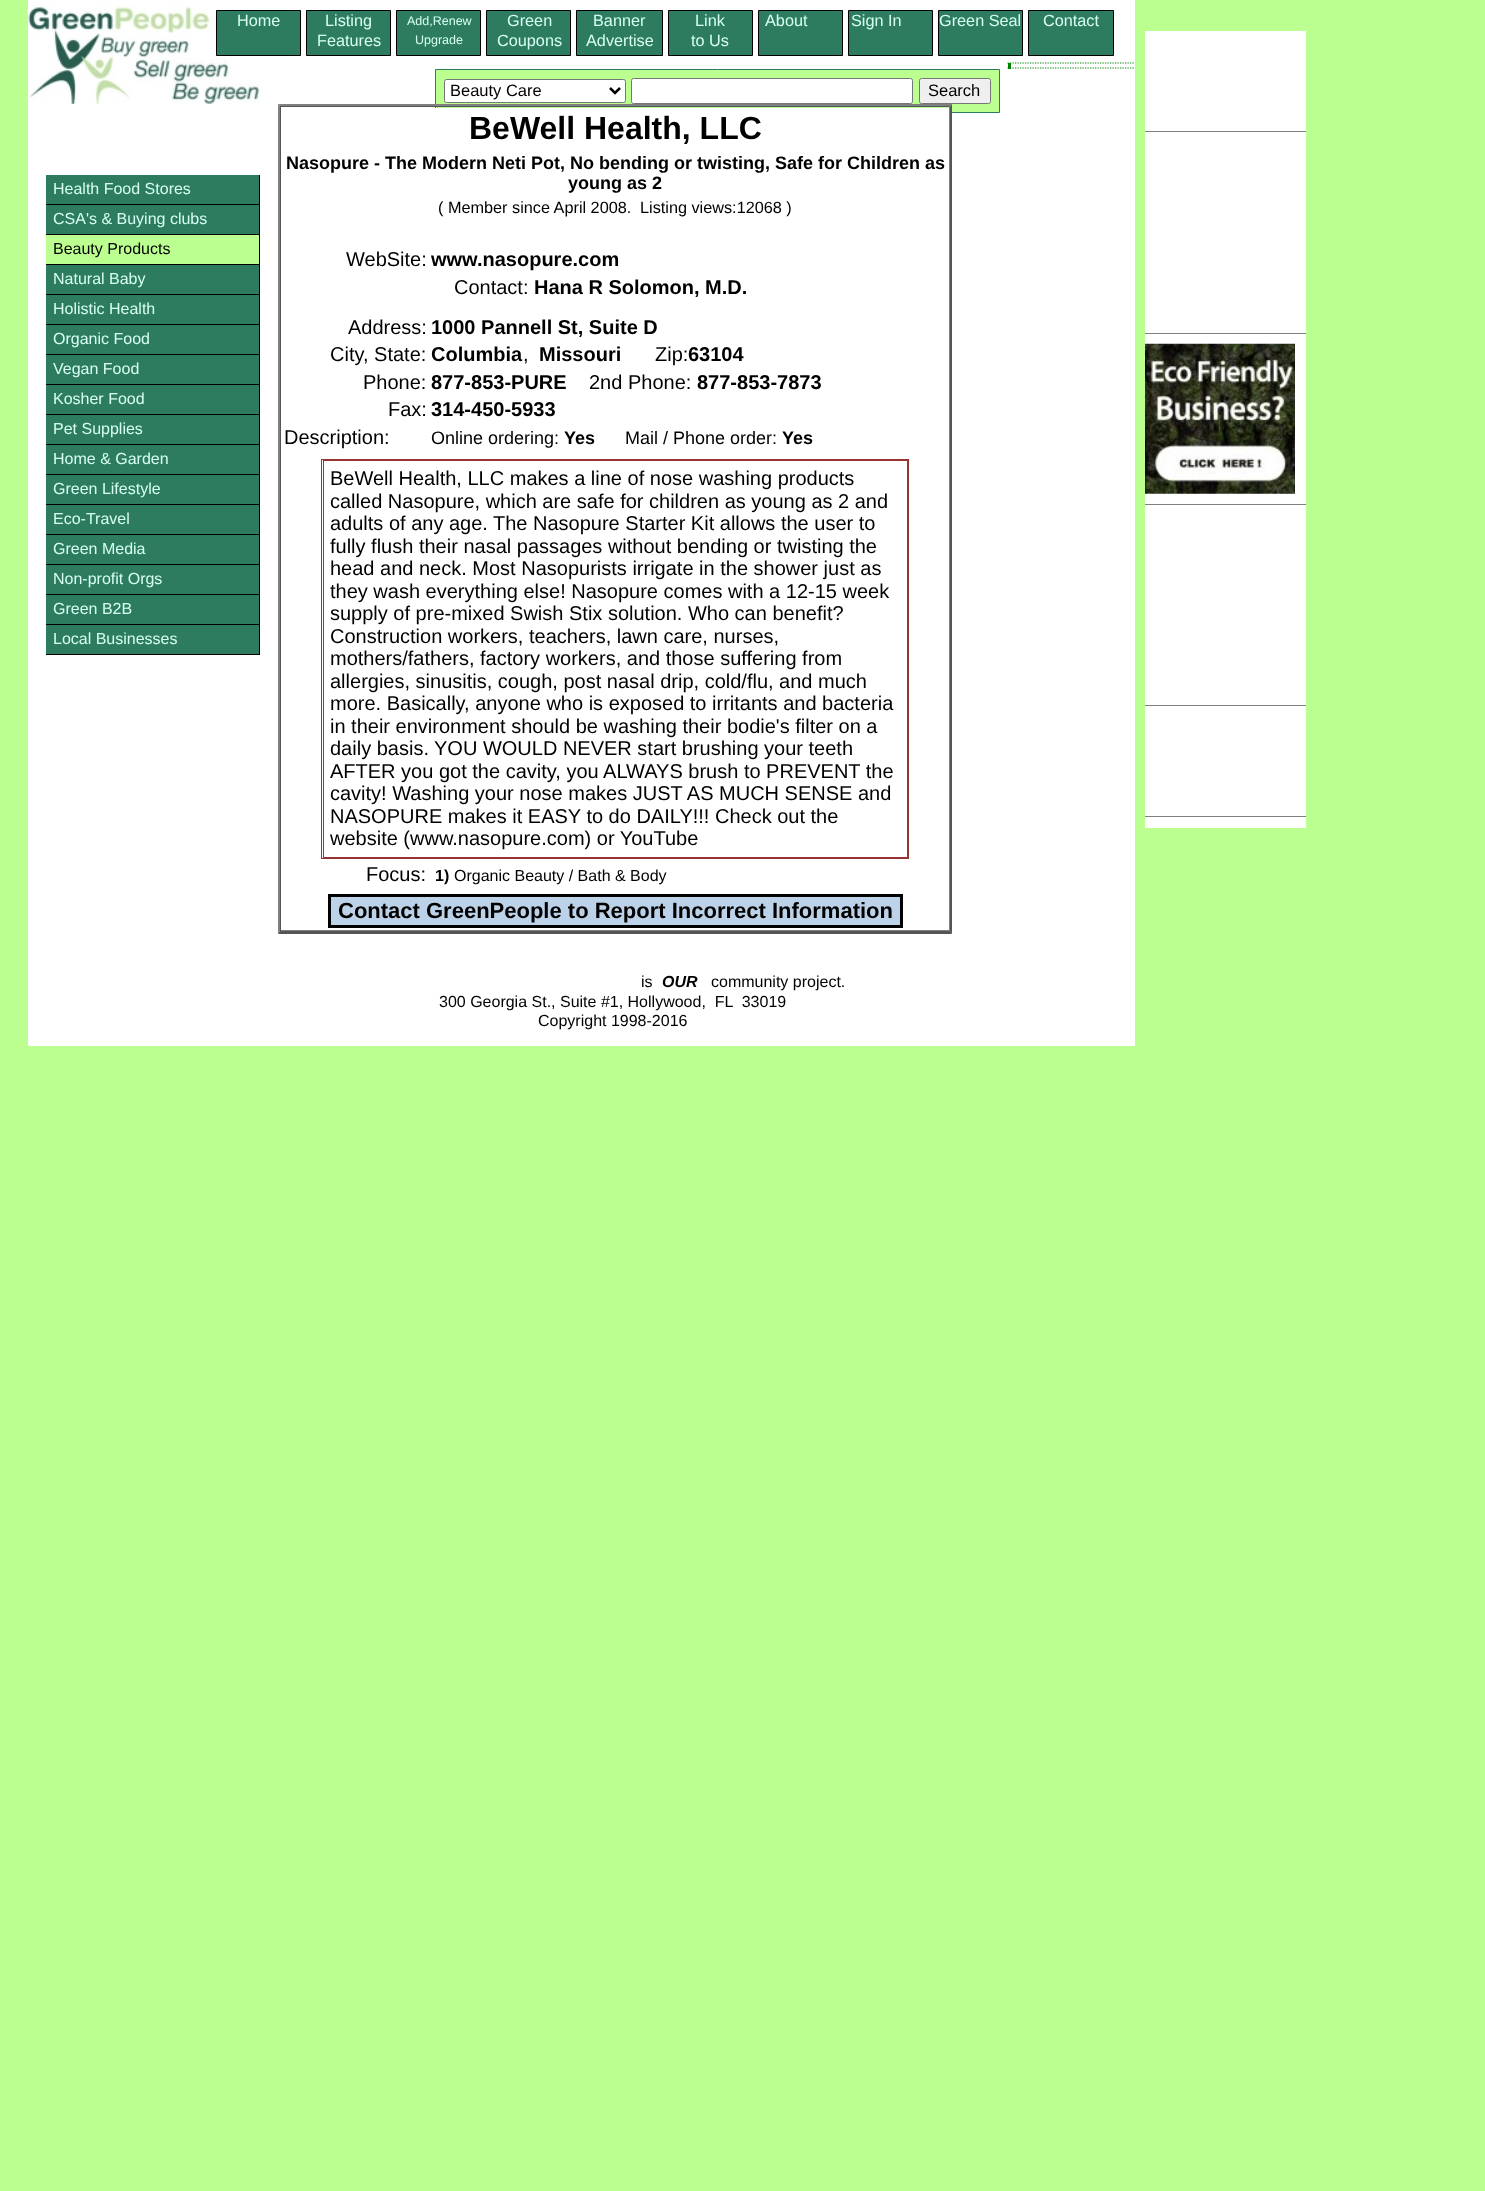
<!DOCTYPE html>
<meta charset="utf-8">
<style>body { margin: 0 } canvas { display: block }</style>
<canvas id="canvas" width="1485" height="2191"></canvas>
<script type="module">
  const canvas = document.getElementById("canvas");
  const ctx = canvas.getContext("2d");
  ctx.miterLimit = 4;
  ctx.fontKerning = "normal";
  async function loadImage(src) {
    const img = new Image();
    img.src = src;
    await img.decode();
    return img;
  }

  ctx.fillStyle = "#bcff91";
  ctx.fillRect(0, 0, 1485, 2191);
  ctx.fillStyle = "#ffffff";
  ctx.fillRect(28, 0, 1107, 1046);
  ctx.drawImage(await loadImage("img1.png"), 28, 5, 232, 99);
  ctx.fillStyle = "#2d7c60";
  ctx.beginPath();
  ctx.rect(216.5, 10.5, 84, 45);
  ctx.fill();
  ctx.strokeStyle = "#000000";
  ctx.stroke();
  ctx.font = "16.25px Liberation Sans";
  ctx.fillStyle = "#d7fff1";
  ctx.fillText("Home", 237, 26);
  ctx.fillStyle = "#2d7c60";
  ctx.beginPath();
  ctx.rect(306.5, 10.5, 84, 45);
  ctx.fill();
  ctx.stroke();
  ctx.fillStyle = "#d7fff1";
  ctx.fillText("Listing", 325, 26);
  ctx.fillText("Features", 317, 46);
  ctx.fillStyle = "#2d7c60";
  ctx.beginPath();
  ctx.rect(396.5, 10.5, 84, 45);
  ctx.fill();
  ctx.stroke();
  ctx.font = "12.5px Liberation Sans";
  ctx.fillStyle = "#d7fff1";
  ctx.fillText("Add,Renew", 407, 25);
  ctx.fillText("Upgrade", 415, 44);
  ctx.fillStyle = "#2d7c60";
  ctx.beginPath();
  ctx.rect(486.5, 10.5, 84, 45);
  ctx.fill();
  ctx.stroke();
  ctx.font = "16.25px Liberation Sans";
  ctx.fillStyle = "#d7fff1";
  ctx.fillText("Green", 507, 26);
  ctx.fillText("Coupons", 497, 46);
  ctx.fillStyle = "#2d7c60";
  ctx.beginPath();
  ctx.rect(576.5, 10.5, 86, 45);
  ctx.fill();
  ctx.stroke();
  ctx.fillStyle = "#d7fff1";
  ctx.fillText("Banner", 593, 26);
  ctx.fillText("Advertise", 586, 46);
  ctx.fillStyle = "#2d7c60";
  ctx.beginPath();
  ctx.rect(668.5, 10.5, 84, 45);
  ctx.fill();
  ctx.stroke();
  ctx.fillStyle = "#d7fff1";
  ctx.fillText("Link", 695, 26);
  ctx.fillText("to Us", 691, 46);
  ctx.fillStyle = "#2d7c60";
  ctx.beginPath();
  ctx.rect(758.5, 10.5, 84, 45);
  ctx.fill();
  ctx.stroke();
  ctx.fillStyle = "#d7fff1";
  ctx.fillText("About", 765, 26);
  ctx.fillStyle = "#2d7c60";
  ctx.beginPath();
  ctx.rect(848.5, 10.5, 84, 45);
  ctx.fill();
  ctx.stroke();
  ctx.fillStyle = "#d7fff1";
  ctx.fillText("Sign In", 851, 26);
  ctx.fillStyle = "#2d7c60";
  ctx.beginPath();
  ctx.rect(938.5, 10.5, 84, 45);
  ctx.fill();
  ctx.stroke();
  ctx.fillStyle = "#d7fff1";
  ctx.fillText("Green Seal", 939, 26);
  ctx.fillStyle = "#2d7c60";
  ctx.beginPath();
  ctx.rect(1028.5, 10.5, 85, 45);
  ctx.fill();
  ctx.stroke();
  ctx.fillStyle = "#d7fff1";
  ctx.fillText("Contact", 1043, 26);
  ctx.beginPath();
  ctx.moveTo(1007.5, 63);
  ctx.lineTo(1135, 63);
  ctx.strokeStyle = "#008000";
  ctx.lineWidth = 1.2;
  ctx.setLineDash([1.25, 1.25]);
  ctx.stroke();
  ctx.beginPath();
  ctx.moveTo(1007.5, 68);
  ctx.lineTo(1135, 68);
  ctx.stroke();
  ctx.fillStyle = "#008000";
  ctx.fillRect(1008, 63, 3, 6);
  ctx.fillStyle = "#bcff91";
  ctx.beginPath();
  ctx.rect(435.5, 69.5, 564, 43);
  ctx.fill();
  ctx.strokeStyle = "#2d7c60";
  ctx.lineWidth = 1;
  ctx.setLineDash([]);
  ctx.stroke();
  ctx.fillStyle = "#ffffff";
  ctx.beginPath();
  ctx.roundRect(444.5, 79.5, 181, 23, 2);
  ctx.fill();
  ctx.strokeStyle = "#767676";
  ctx.stroke();
  ctx.beginPath();
  ctx.moveTo(610, 88);
  ctx.lineTo(615, 93);
  ctx.lineTo(620, 88);
  ctx.strokeStyle = "#000000";
  ctx.lineWidth = 2.5;
  ctx.stroke();
  ctx.font = "16.5px Liberation Sans";
  ctx.fillStyle = "#000000";
  ctx.fillText("Beauty Care", 450, 96);
  ctx.fillStyle = "#ffffff";
  ctx.beginPath();
  ctx.roundRect(631.5, 78.5, 281, 25, 2);
  ctx.fill();
  ctx.strokeStyle = "#767676";
  ctx.lineWidth = 1;
  ctx.stroke();
  ctx.fillStyle = "#efefef";
  ctx.beginPath();
  ctx.roundRect(919.5, 78.5, 71, 25, 2);
  ctx.fill();
  ctx.stroke();
  ctx.fillStyle = "#000000";
  ctx.fillText("Search", 928, 96);
  ctx.fillStyle = "#2d7c60";
  ctx.fillRect(46, 175, 213, 29);
  ctx.fillStyle = "#000000";
  ctx.fillRect(259, 175, 1, 480);
  ctx.fillRect(46, 204, 214, 1);
  ctx.font = "16px Liberation Sans";
  ctx.fillStyle = "#d7fff1";
  ctx.fillText("Health Food Stores", 53, 194);
  ctx.fillStyle = "#2d7c60";
  ctx.fillRect(46, 205, 213, 29);
  ctx.fillStyle = "#000000";
  ctx.fillRect(46, 234, 214, 1);
  ctx.fillStyle = "#d7fff1";
  ctx.fillText("CSA's & Buying clubs", 53, 224);
  ctx.fillStyle = "#bcff91";
  ctx.fillRect(46, 235, 213, 29);
  ctx.fillStyle = "#000000";
  ctx.fillRect(46, 264, 214, 1);
  ctx.fillText("Beauty Products", 53, 254);
  ctx.fillStyle = "#2d7c60";
  ctx.fillRect(46, 265, 213, 29);
  ctx.fillStyle = "#000000";
  ctx.fillRect(46, 294, 214, 1);
  ctx.fillStyle = "#d7fff1";
  ctx.fillText("Natural Baby", 53, 284);
  ctx.fillStyle = "#2d7c60";
  ctx.fillRect(46, 295, 213, 29);
  ctx.fillStyle = "#000000";
  ctx.fillRect(46, 324, 214, 1);
  ctx.fillStyle = "#d7fff1";
  ctx.fillText("Holistic Health", 53, 314);
  ctx.fillStyle = "#2d7c60";
  ctx.fillRect(46, 325, 213, 29);
  ctx.fillStyle = "#000000";
  ctx.fillRect(46, 354, 214, 1);
  ctx.fillStyle = "#d7fff1";
  ctx.fillText("Organic Food", 53, 344);
  ctx.fillStyle = "#2d7c60";
  ctx.fillRect(46, 355, 213, 29);
  ctx.fillStyle = "#000000";
  ctx.fillRect(46, 384, 214, 1);
  ctx.fillStyle = "#d7fff1";
  ctx.fillText("Vegan Food", 53, 374);
  ctx.fillStyle = "#2d7c60";
  ctx.fillRect(46, 385, 213, 29);
  ctx.fillStyle = "#000000";
  ctx.fillRect(46, 414, 214, 1);
  ctx.fillStyle = "#d7fff1";
  ctx.fillText("Kosher Food", 53, 404);
  ctx.fillStyle = "#2d7c60";
  ctx.fillRect(46, 415, 213, 29);
  ctx.fillStyle = "#000000";
  ctx.fillRect(46, 444, 214, 1);
  ctx.fillStyle = "#d7fff1";
  ctx.fillText("Pet Supplies", 53, 434);
  ctx.fillStyle = "#2d7c60";
  ctx.fillRect(46, 445, 213, 29);
  ctx.fillStyle = "#000000";
  ctx.fillRect(46, 474, 214, 1);
  ctx.fillStyle = "#d7fff1";
  ctx.fillText("Home & Garden", 53, 464);
  ctx.fillStyle = "#2d7c60";
  ctx.fillRect(46, 475, 213, 29);
  ctx.fillStyle = "#000000";
  ctx.fillRect(46, 504, 214, 1);
  ctx.fillStyle = "#d7fff1";
  ctx.fillText("Green Lifestyle", 53, 494);
  ctx.fillStyle = "#2d7c60";
  ctx.fillRect(46, 505, 213, 29);
  ctx.fillStyle = "#000000";
  ctx.fillRect(46, 534, 214, 1);
  ctx.fillStyle = "#d7fff1";
  ctx.fillText("Eco-Travel", 53, 524);
  ctx.fillStyle = "#2d7c60";
  ctx.fillRect(46, 535, 213, 29);
  ctx.fillStyle = "#000000";
  ctx.fillRect(46, 564, 214, 1);
  ctx.fillStyle = "#d7fff1";
  ctx.fillText("Green Media", 53, 554);
  ctx.fillStyle = "#2d7c60";
  ctx.fillRect(46, 565, 213, 29);
  ctx.fillStyle = "#000000";
  ctx.fillRect(46, 594, 214, 1);
  ctx.fillStyle = "#d7fff1";
  ctx.fillText("Non-profit Orgs", 53, 584);
  ctx.fillStyle = "#2d7c60";
  ctx.fillRect(46, 595, 213, 29);
  ctx.fillStyle = "#000000";
  ctx.fillRect(46, 624, 214, 1);
  ctx.fillStyle = "#d7fff1";
  ctx.fillText("Green B2B", 53, 614);
  ctx.fillStyle = "#2d7c60";
  ctx.fillRect(46, 625, 213, 29);
  ctx.fillStyle = "#000000";
  ctx.fillRect(46, 654, 214, 1);
  ctx.fillStyle = "#d7fff1";
  ctx.fillText("Local Businesses", 53, 644);
  ctx.fillStyle = "#808080";
  ctx.beginPath();
  ctx.moveTo(278, 104);
  ctx.lineTo(952, 104);
  ctx.lineTo(950, 106);
  ctx.lineTo(280, 106);
  ctx.closePath();
  ctx.fill();
  ctx.fillStyle = "#555555";
  ctx.beginPath();
  ctx.moveTo(952, 104);
  ctx.lineTo(952, 934);
  ctx.lineTo(950, 931);
  ctx.lineTo(950, 106);
  ctx.closePath();
  ctx.fill();
  ctx.beginPath();
  ctx.moveTo(952, 934);
  ctx.lineTo(278, 934);
  ctx.lineTo(280, 931);
  ctx.lineTo(950, 931);
  ctx.closePath();
  ctx.fill();
  ctx.fillStyle = "#808080";
  ctx.beginPath();
  ctx.moveTo(278, 934);
  ctx.lineTo(278, 104);
  ctx.lineTo(280, 106);
  ctx.lineTo(280, 931);
  ctx.closePath();
  ctx.fill();
  ctx.fillStyle = "#555555";
  ctx.fillRect(280, 106, 670, 1);
  ctx.fillStyle = "#808080";
  ctx.fillRect(949, 106, 1, 825);
  ctx.fillRect(280, 930, 670, 1);
  ctx.fillStyle = "#555555";
  ctx.fillRect(280, 106, 1, 825);
  ctx.fillStyle = "#ffffff";
  ctx.fillRect(435, 108, 514, 5);
  ctx.font = "bold 32px Liberation Sans";
  ctx.fillStyle = "#000000";
  ctx.fillText("BeWell Health, LLC", 469, 139);
  ctx.font = "bold 18px Liberation Sans";
  ctx.fillText("Nasopure - The Modern Neti Pot, No bending or twisting, Safe for Children as", 286, 169);
  ctx.fillText("young as 2", 568, 189);
  ctx.font = "16.25px Liberation Sans";
  ctx.fillText("( Member since April 2008.", 438, 213);
  ctx.fillText("Listing views:12068 )", 640, 213);
  ctx.font = "20px Liberation Sans";
  ctx.fillText("WebSite:", 346, 266);
  ctx.font = "bold 20px Liberation Sans";
  ctx.fillText("www.nasopure.com", 431, 266);
  ctx.font = "20px Liberation Sans";
  ctx.fillText("Contact:", 454, 294);
  ctx.font = "bold 20px Liberation Sans";
  ctx.fillText("Hana R Solomon, M.D.", 534, 294);
  ctx.font = "20px Liberation Sans";
  ctx.fillText("Address:", 348, 334);
  ctx.font = "bold 20px Liberation Sans";
  ctx.fillText("1000 Pannell St, Suite D", 431, 334);
  ctx.font = "20px Liberation Sans";
  ctx.fillText("City, State:", 330, 361);
  ctx.font = "bold 20px Liberation Sans";
  ctx.fillText("Columbia", 431, 361);
  ctx.font = "20px Liberation Sans";
  ctx.fillText(",", 523, 361);
  ctx.font = "bold 20px Liberation Sans";
  ctx.fillText("Missouri", 539, 361);
  ctx.font = "20px Liberation Sans";
  ctx.fillText("Zip:", 655, 361);
  ctx.font = "bold 20px Liberation Sans";
  ctx.fillText("63104", 688, 361);
  ctx.font = "20px Liberation Sans";
  ctx.fillText("Phone:", 363, 389);
  ctx.font = "bold 20px Liberation Sans";
  ctx.fillText("877-853-PURE", 431, 389);
  ctx.font = "20px Liberation Sans";
  ctx.fillText("2nd Phone:", 589, 389);
  ctx.font = "bold 20px Liberation Sans";
  ctx.fillText("877-853-7873", 697, 389);
  ctx.font = "20px Liberation Sans";
  ctx.fillText("Fax:", 388, 416);
  ctx.font = "bold 20px Liberation Sans";
  ctx.fillText("314-450-5933", 431, 416);
  ctx.font = "20px Liberation Sans";
  ctx.fillText("Description:", 284, 444);
  ctx.font = "18px Liberation Sans";
  ctx.fillText("Online ordering:", 431, 444);
  ctx.font = "bold 18px Liberation Sans";
  ctx.fillText("Yes", 564, 444);
  ctx.font = "18px Liberation Sans";
  ctx.fillText("Mail / Phone order:", 625, 444);
  ctx.font = "bold 18px Liberation Sans";
  ctx.fillText("Yes", 782, 444);
  ctx.strokeStyle = "#993333";
  ctx.strokeRect(321.5, 459.5, 587, 399);
  ctx.strokeRect(323.5, 460.5, 584, 397);
  ctx.font = "20px Liberation Sans";
  ctx.fillText("BeWell Health, LLC makes a line of nose washing products", 330, 485);
  ctx.fillText("called Nasopure, which are safe for children as young as 2 and", 330, 508);
  ctx.fillText("adults of any age.", 330, 530);
  ctx.fillText("The Nasopure Starter Kit allows the user to", 493, 530);
  ctx.fillText("fully flush their nasal passages without bending or twisting the", 330, 553);
  ctx.fillText("head and neck. Most Nasopurists irrigate in the shower just as", 330, 575);
  ctx.fillText("they wash everything else! Nasopure comes with a 12-15 week", 330, 598);
  ctx.fillText("supply of pre-mixed Swish Stix solution. Who can benefit?", 330, 620);
  ctx.fillText("Construction workers, teachers, lawn care, nurses,", 330, 643);
  ctx.fillText("mothers/fathers, factory workers, and those suffering from", 330, 665);
  ctx.fillText("allergies, sinusitis, cough, post nasal drip, cold/flu, and much", 330, 688);
  ctx.fillText("more. Basically, anyone who is exposed to irritants and bacteria", 330, 710);
  ctx.fillText("in their environment should be washing their bodie's filter on a", 330, 733);
  ctx.fillText("daily basis.", 330, 755);
  ctx.fillText("YOU WOULD NEVER start brushing your teeth", 434, 755);
  ctx.fillText("AFTER you got the cavity, you ALWAYS brush to PREVENT the", 330, 778);
  ctx.fillText("cavity! Washing your nose makes JUST AS MUCH SENSE and", 330, 800);
  ctx.fillText("NASOPURE makes it EASY to do DAILY!!! Check out the", 330, 823);
  ctx.fillText("website (www.nasopure.com) or YouTube", 330, 845);
  ctx.fillText("Focus:", 366, 881);
  ctx.font = "bold 16px Liberation Sans";
  ctx.fillText("1)", 435, 881);
  ctx.font = "16px Liberation Sans";
  ctx.fillText("Organic Beauty / Bath & Body", 454, 881);
  ctx.fillStyle = "#bcd2e8";
  ctx.beginPath();
  ctx.rect(329.5, 895.5, 572, 31);
  ctx.fill();
  ctx.strokeStyle = "#000000";
  ctx.lineWidth = 3;
  ctx.stroke();
  ctx.font = "bold 22px Liberation Sans";
  ctx.fillStyle = "#000000";
  ctx.fillText("Contact GreenPeople to Report Incorrect Information", 338, 918);
  ctx.font = "16px Liberation Sans";
  ctx.fillText("is", 641, 987);
  ctx.font = "italic bold 16px Liberation Sans";
  ctx.fillText("OUR", 662, 987);
  ctx.font = "16px Liberation Sans";
  ctx.fillText("community project.", 711, 987);
  ctx.fillText("300 Georgia St., Suite #1, Hollywood,  FL  33019", 439, 1007);
  ctx.fillText("Copyright 1998-2016", 538, 1026);
  ctx.fillStyle = "#ffffff";
  ctx.fillRect(1145, 31, 161, 797);
  ctx.fillStyle = "#808080";
  ctx.fillRect(1145, 131, 161, 1);
  ctx.fillRect(1145, 333, 161, 1);
  ctx.drawImage(await loadImage("img2.png"), 1145, 343, 150, 151);
  ctx.fillRect(1145, 504, 161, 1);
  ctx.fillRect(1145, 705, 161, 1);
  ctx.fillRect(1145, 816, 161, 1);
</script>
